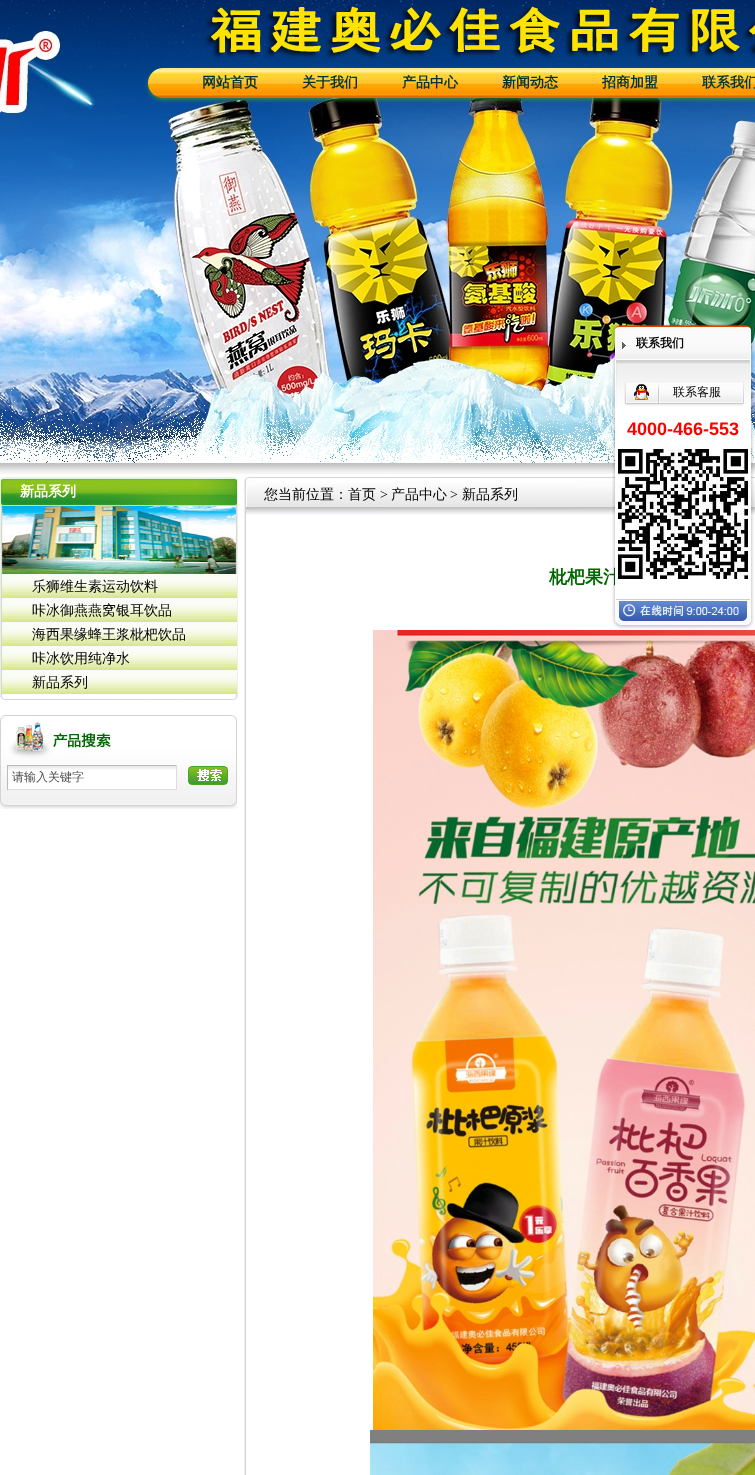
<!DOCTYPE html>
<meta charset="utf-8">
<style>body { margin: 0 } canvas { display: block }</style>
<canvas id="canvas" width="755" height="1475"></canvas>
<script type="module">
  const canvas = document.getElementById("canvas");
  const ctx = canvas.getContext("2d");
  ctx.miterLimit = 4;
  ctx.fontKerning = "normal";
  async function loadImage(src) {
    const img = new Image();
    img.src = src;
    await img.decode();
    return img;
  }

  ctx.fillStyle = "#ffffff";
  ctx.fillRect(0, 0, 755, 1475);
  ctx.drawImage(await loadImage("img1.png"), 0, 463, 755, 11);
  ctx.drawImage(await loadImage("img2.png"), 0, 0, 755, 463);
  ctx.drawImage(await loadImage("img3.png"), 145, 6, 610, 98);
  ctx.font = "bold 14px WenQuanYi Zen Hei";
  ctx.fillStyle = "#003333";
  ctx.fillText("网站首页", 202, 87);
  ctx.fillText("关于我们", 302, 87);
  ctx.fillText("产品中心", 402, 87);
  ctx.fillText("新闻动态", 502, 87);
  ctx.fillText("招商加盟", 602, 87);
  ctx.fillText("联系我们", 702, 87);
  ctx.drawImage(await loadImage("img4.png"), 0, 477, 238, 29);
  ctx.fillStyle = "#ffffff";
  ctx.fillText("新品系列", 20, 496);
  ctx.drawImage(await loadImage("img5.png"), 0, 506, 238, 188);
  ctx.drawImage(await loadImage("img6.png"), 2, 506, 234, 68);
  ctx.drawImage(await loadImage("img7.png"), 2, 574, 235, 24);
  ctx.font = "500 14px WenQuanYi Zen Hei";
  ctx.fillStyle = "#000000";
  ctx.fillText("乐狮维生素运动饮料", 32, 591);
  ctx.drawImage(await loadImage("img7.png"), 2, 598, 235, 24);
  ctx.fillText("咔冰御燕燕窝银耳饮品", 32, 615);
  ctx.drawImage(await loadImage("img7.png"), 2, 622, 235, 24);
  ctx.fillText("海西果缘蜂王浆枇杷饮品", 32, 639);
  ctx.drawImage(await loadImage("img7.png"), 2, 646, 235, 24);
  ctx.fillText("咔冰饮用纯净水", 32, 663);
  ctx.drawImage(await loadImage("img7.png"), 2, 670, 235, 24);
  ctx.fillText("新品系列", 32, 687);
  ctx.drawImage(await loadImage("img8.png"), 0, 694, 238, 6);
  ctx.drawImage(await loadImage("img9.png"), 0, 715, 237, 94);
  ctx.fillStyle = "#ffffff";
  ctx.fillRect(8, 770, 168, 19);
  ctx.drawImage(await loadImage("img10.png"), 8, 766, 168, 4);
  ctx.fillStyle = "#bbbbbb";
  ctx.fillRect(7, 765, 170, 1);
  ctx.fillStyle = "#dddddd";
  ctx.fillRect(176, 765, 1, 25);
  ctx.fillRect(7, 789, 170, 1);
  ctx.fillStyle = "#bbbbbb";
  ctx.fillRect(7, 765, 1, 25);
  ctx.font = "500 12px WenQuanYi Zen Hei";
  ctx.fillStyle = "#4c4c4c";
  ctx.fillText("请输入关键字", 12, 781);
  ctx.drawImage(await loadImage("img11.png"), 188, 766, 40, 19);
  ctx.drawImage(await loadImage("img12.png"), 244, 516, 2, 959);
  ctx.drawImage(await loadImage("img13.png"), 244, 477, 511, 39);
  ctx.font = "500 14px WenQuanYi Zen Hei";
  ctx.fillStyle = "#000000";
  ctx.fillText("您当前位置：首页", 264, 499);
  ctx.font = "14px Liberation Serif";
  ctx.fillText(">", 380, 499);
  ctx.font = "500 14px WenQuanYi Zen Hei";
  ctx.fillText("产品中心", 391, 499);
  ctx.font = "14px Liberation Serif";
  ctx.fillText(">", 450, 499);
  ctx.font = "500 14px WenQuanYi Zen Hei";
  ctx.fillText("新品系列", 462, 499);
  ctx.font = "bold 18px WenQuanYi Zen Hei";
  ctx.fillStyle = "#006600";
  ctx.fillText("枇杷果汁", 549, 583);
  ctx.drawImage(await loadImage("img14.png"), 373, 630, 382, 800);
  ctx.drawImage(await loadImage("img15.png"), 370, 1430, 385, 45);
  ctx.drawImage(await loadImage("img16.png"), 612, 323, 141, 9);
  ctx.drawImage(await loadImage("img17.png"), 612, 332, 142, 269);
  ctx.drawImage(await loadImage("img18.png"), 616, 332, 134, 29);
  ctx.drawImage(await loadImage("img19.png"), 622, 342, 4, 7);
  ctx.font = "bold 12px WenQuanYi Zen Hei";
  ctx.fillStyle = "#000000";
  ctx.fillText("联系我们", 636, 347);
  ctx.drawImage(await loadImage("img20.png"), 616, 361, 134, 46);
  ctx.fillStyle = "#d0d0d0";
  ctx.fillRect(616, 599, 134, 1);
  ctx.drawImage(await loadImage("img21.png"), 624, 381, 120, 25);
  ctx.font = "500 12px WenQuanYi Zen Hei";
  ctx.fillStyle = "#000000";
  ctx.fillText("联系客服", 673, 396);
  ctx.font = "bold 18px Liberation Sans";
  ctx.fillStyle = "#ff0000";
  ctx.fillText("4000-466-553", 627, 435);
  ctx.drawImage(await loadImage("img22.png"), 618, 449, 130, 130);
  ctx.drawImage(await loadImage("img23.png"), 612, 601, 142, 28);
</script>
